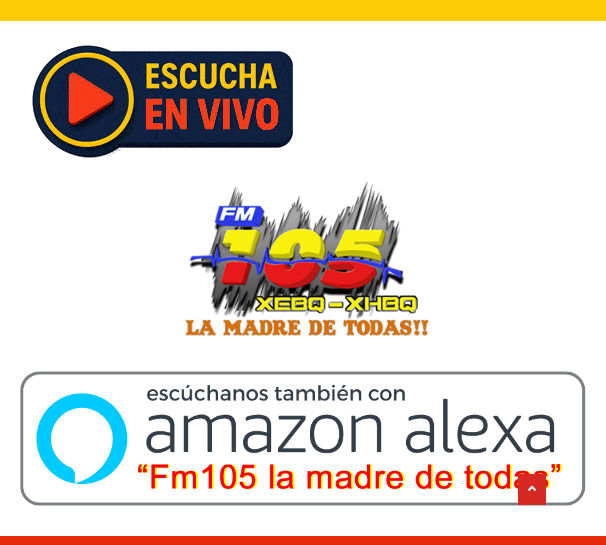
<!DOCTYPE html>
<meta charset="utf-8">
<style>body { margin: 0 } canvas { display: block }</style>
<canvas id="canvas" width="606" height="545"></canvas>
<script type="module">
  const canvas = document.getElementById("canvas");
  const ctx = canvas.getContext("2d");
  ctx.miterLimit = 4;
  ctx.fontKerning = "normal";
  async function loadImage(src) {
    const img = new Image();
    img.src = src;
    await img.decode();
    return img;
  }
  let gradient;

  ctx.fillStyle = "#fdcb07";
  ctx.fillRect(0, 0, 606, 545);
  ctx.fillStyle = "#ffffff";
  ctx.fillRect(0, 21, 606, 515);
  ctx.drawImage(await loadImage("img1.png"), 32, 45, 261, 113);
  ctx.drawImage(await loadImage("img2.png"), 185, 181, 244, 155);
  ctx.drawImage(await loadImage("img3.png"), 20, 371, 566, 135);
  gradient = ctx.createLinearGradient(303, 536, 303, 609);
  gradient.addColorStop(0, "#ea2c0c");
  gradient.addColorStop(1, "#8f0101");
  ctx.fillStyle = gradient;
  ctx.fillRect(0, 536, 606, 9);
  ctx.fillStyle = "#d72924";
  ctx.fillRect(518, 474, 28, 31);
  ctx.drawImage(await loadImage("img4.png"), 528, 485, 9, 6);
</script>
